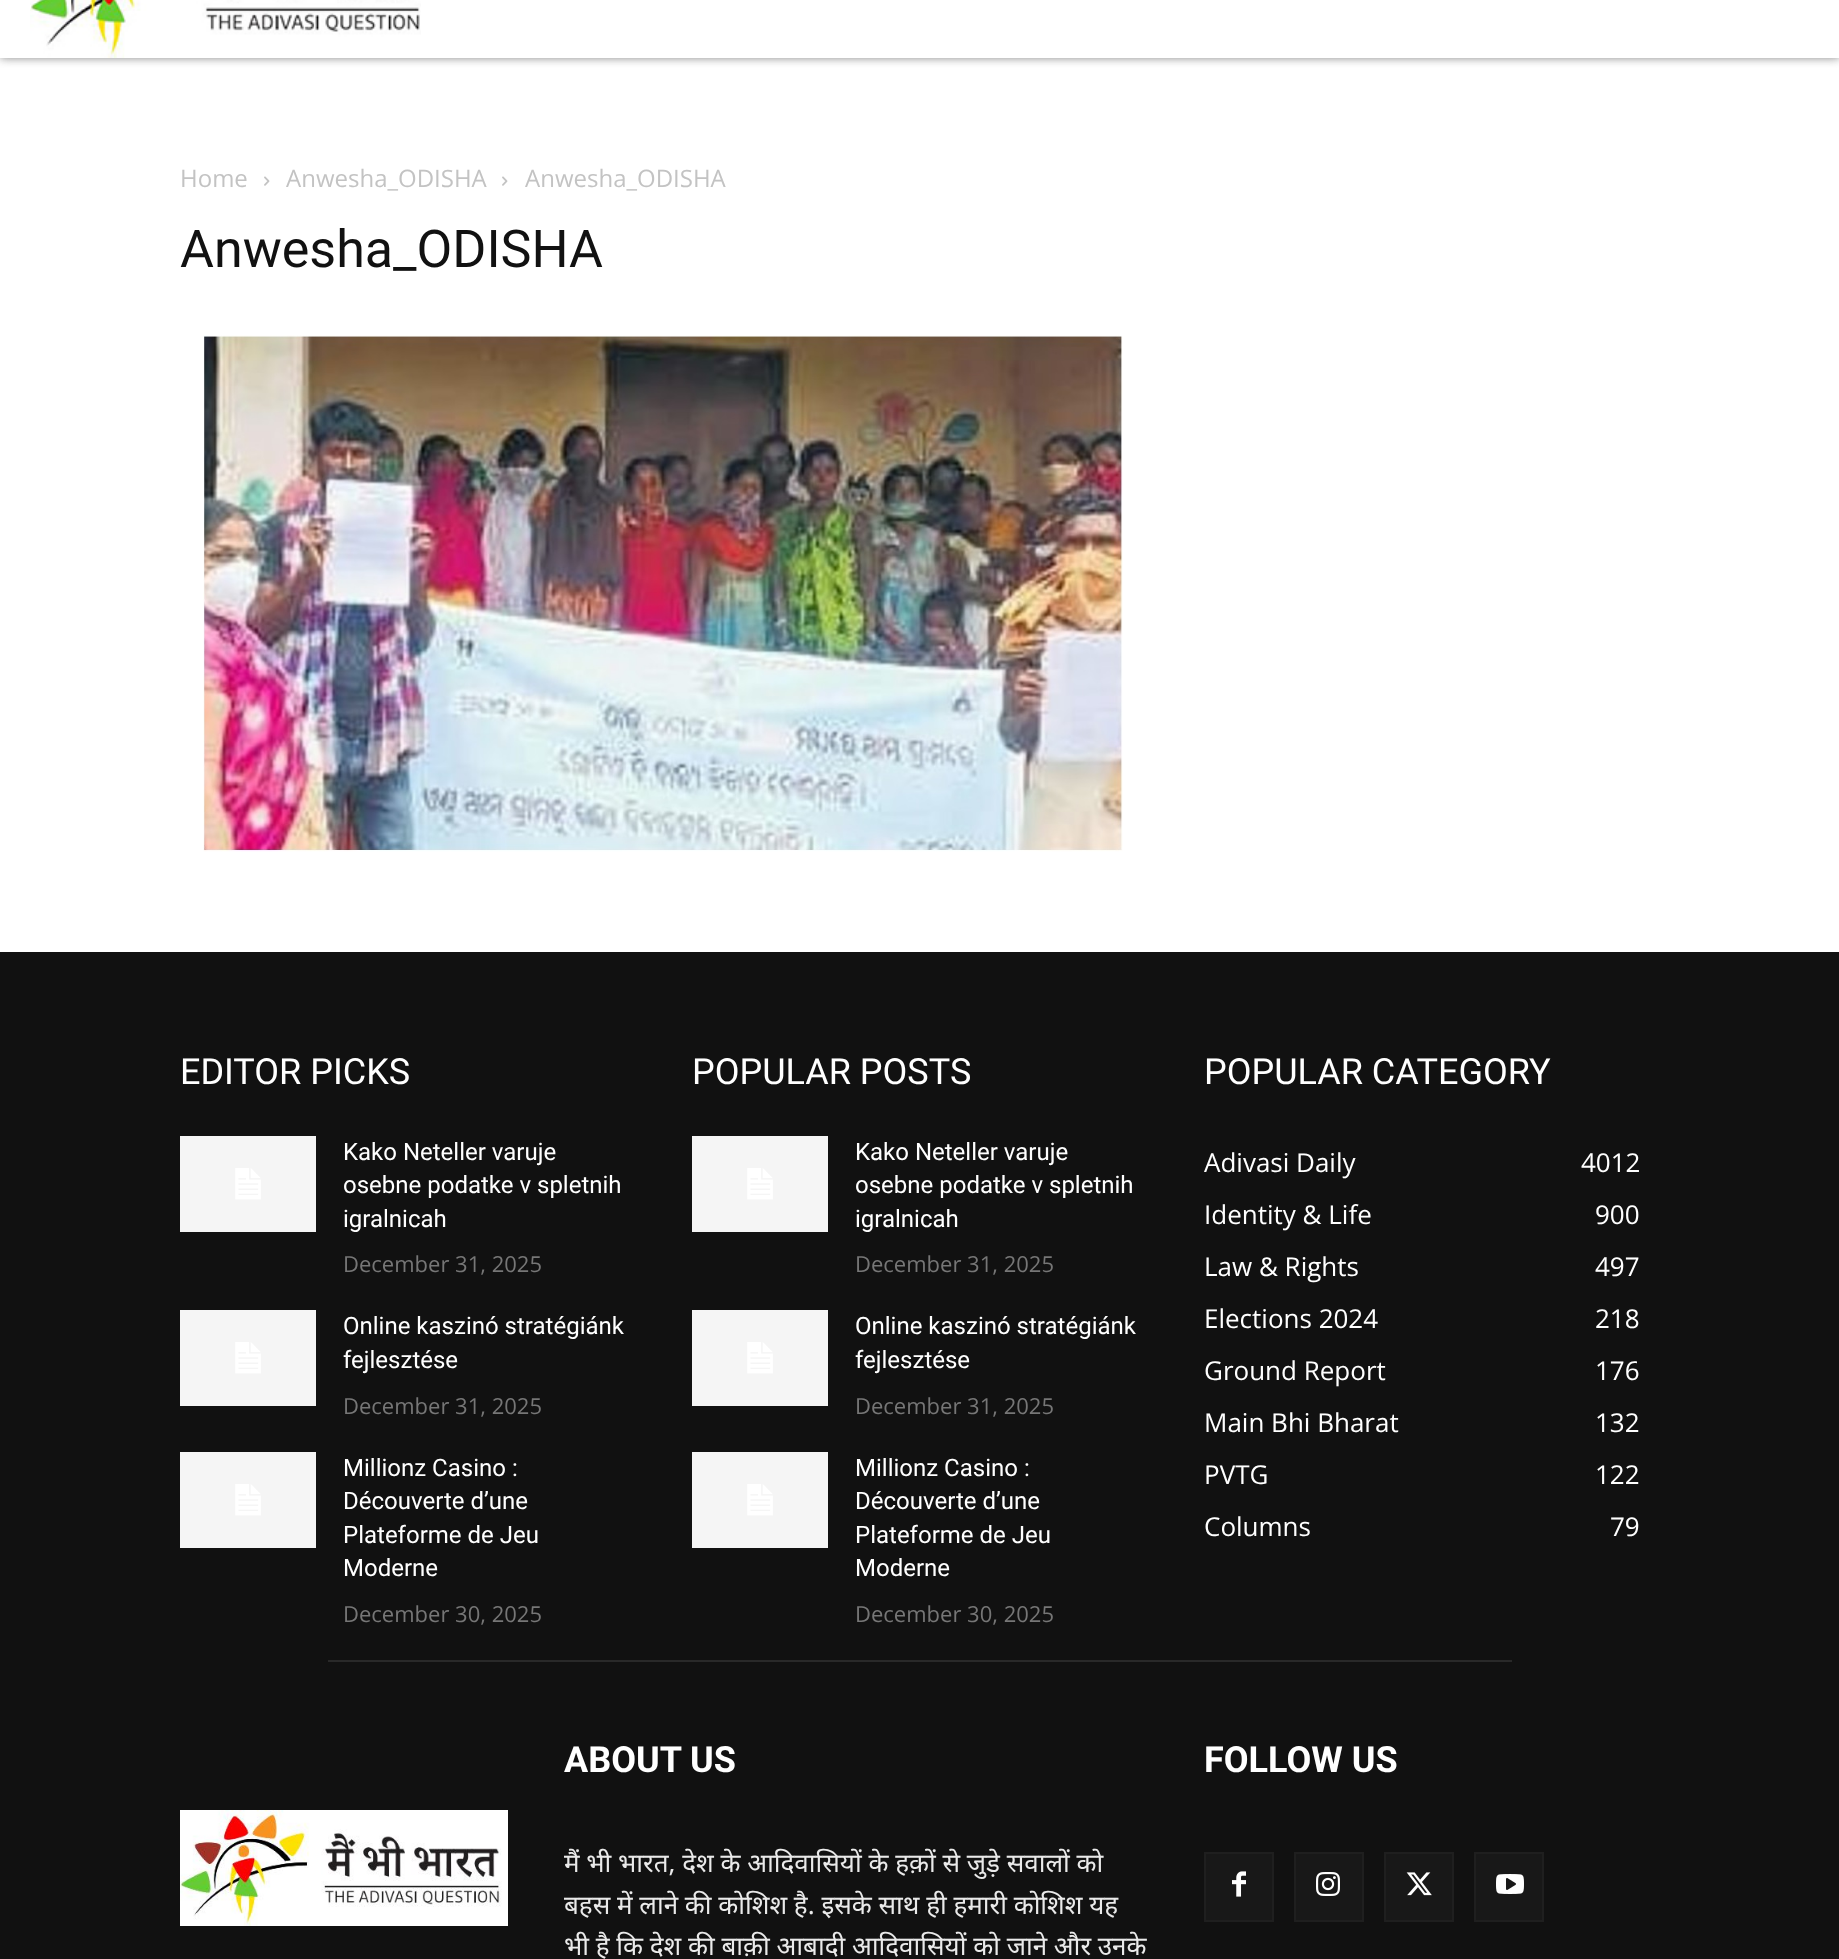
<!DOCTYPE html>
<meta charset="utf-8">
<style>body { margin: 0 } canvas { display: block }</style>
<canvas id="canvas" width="1839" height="1959"></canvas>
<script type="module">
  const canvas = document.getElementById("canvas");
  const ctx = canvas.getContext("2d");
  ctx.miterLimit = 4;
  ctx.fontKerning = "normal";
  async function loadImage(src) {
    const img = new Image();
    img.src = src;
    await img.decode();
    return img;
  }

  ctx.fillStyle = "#ffffff";
  ctx.fillRect(0, 0, 1839, 1959);
  ctx.save();
  ctx.beginPath();
  ctx.rect(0, 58, 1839, 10);
  ctx.clip();
  ctx.fillStyle = "#888888";
  ctx.filter = "blur(5px)";
  ctx.beginPath();
  ctx.rect(0, -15, 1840, 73);
  ctx.fill();
  ctx.filter = "none";
  ctx.restore();
  ctx.drawImage(await loadImage("img1.png"), 30, 0, 391, 58);
  ctx.font = "24px Open Sans";
  ctx.fillStyle = "#c3c3c3";
  ctx.fillText("Home", 180, 187);
  ctx.drawImage(await loadImage("img2.png"), 264, 176, 6, 10);
  ctx.fillText("Anwesha_ODISHA", 286, 187);
  ctx.drawImage(await loadImage("img2.png"), 502, 176, 6, 10);
  ctx.fillText("Anwesha_ODISHA", 525, 187);
  ctx.font = "52px Roboto";
  ctx.fillStyle = "#111111";
  ctx.fillText("Anwesha_ODISHA", 180, 267);
  ctx.drawImage(await loadImage("img3.png"), 203, 335, 920, 517);
  ctx.fillRect(0, 952, 1839, 1007);
  ctx.font = "36px Roboto";
  ctx.fillStyle = "#ffffff";
  ctx.fillText("EDITOR PICKS", 180, 1084);
  ctx.drawImage(await loadImage("img4.png"), 180, 1136, 136, 96);
  ctx.font = "24px Roboto";
  ctx.fillText("Kako Neteller varuje", 343, 1160);
  ctx.fillText("osebne podatke v spletnih", 343, 1193);
  ctx.fillText("igralnicah", 343, 1227);
  ctx.font = "22px Open Sans";
  ctx.fillStyle = "#767676";
  ctx.fillText("December 31, 2025", 343, 1272);
  ctx.drawImage(await loadImage("img4.png"), 180, 1310, 136, 96);
  ctx.font = "24px Roboto";
  ctx.fillStyle = "#ffffff";
  ctx.fillText("Online kaszinó stratégiánk", 343, 1334);
  ctx.fillText("fejlesztése", 343, 1368);
  ctx.font = "22px Open Sans";
  ctx.fillStyle = "#767676";
  ctx.fillText("December 31, 2025", 343, 1414);
  ctx.drawImage(await loadImage("img4.png"), 180, 1452, 136, 96);
  ctx.font = "24px Roboto";
  ctx.fillStyle = "#ffffff";
  ctx.fillText("Millionz Casino :", 343, 1476);
  ctx.fillText("Découverte d’une", 343, 1509);
  ctx.fillText("Plateforme de Jeu", 343, 1543);
  ctx.fillText("Moderne", 343, 1576);
  ctx.font = "22px Open Sans";
  ctx.fillStyle = "#767676";
  ctx.fillText("December 30, 2025", 343, 1622);
  ctx.font = "36px Roboto";
  ctx.fillStyle = "#ffffff";
  ctx.fillText("POPULAR POSTS", 692, 1084);
  ctx.drawImage(await loadImage("img4.png"), 692, 1136, 136, 96);
  ctx.font = "24px Roboto";
  ctx.fillText("Kako Neteller varuje", 855, 1160);
  ctx.fillText("osebne podatke v spletnih", 855, 1193);
  ctx.fillText("igralnicah", 855, 1227);
  ctx.font = "22px Open Sans";
  ctx.fillStyle = "#767676";
  ctx.fillText("December 31, 2025", 855, 1272);
  ctx.drawImage(await loadImage("img4.png"), 692, 1310, 136, 96);
  ctx.font = "24px Roboto";
  ctx.fillStyle = "#ffffff";
  ctx.fillText("Online kaszinó stratégiánk", 855, 1334);
  ctx.fillText("fejlesztése", 855, 1368);
  ctx.font = "22px Open Sans";
  ctx.fillStyle = "#767676";
  ctx.fillText("December 31, 2025", 855, 1414);
  ctx.drawImage(await loadImage("img4.png"), 692, 1452, 136, 96);
  ctx.font = "24px Roboto";
  ctx.fillStyle = "#ffffff";
  ctx.fillText("Millionz Casino :", 855, 1476);
  ctx.fillText("Découverte d’une", 855, 1509);
  ctx.fillText("Plateforme de Jeu", 855, 1543);
  ctx.fillText("Moderne", 855, 1576);
  ctx.font = "22px Open Sans";
  ctx.fillStyle = "#767676";
  ctx.fillText("December 30, 2025", 855, 1622);
  ctx.font = "36px Roboto";
  ctx.fillStyle = "#ffffff";
  ctx.fillText("POPULAR CATEGORY", 1204, 1084);
  ctx.font = "26px Open Sans";
  ctx.fillText("Adivasi Daily", 1204, 1172);
  ctx.fillText("4012", 1581, 1172);
  ctx.fillText("Identity & Life", 1204, 1224);
  ctx.fillText("900", 1595, 1224);
  ctx.fillText("Law & Rights", 1204, 1276);
  ctx.fillText("497", 1595, 1276);
  ctx.fillText("Elections 2024", 1204, 1328);
  ctx.fillText("218", 1595, 1328);
  ctx.fillText("Ground Report", 1204, 1380);
  ctx.fillText("176", 1595, 1380);
  ctx.fillText("Main Bhi Bharat", 1204, 1432);
  ctx.fillText("132", 1595, 1432);
  ctx.fillText("PVTG", 1204, 1484);
  ctx.fillText("122", 1595, 1484);
  ctx.fillText("Columns", 1204, 1536);
  ctx.fillText("79", 1610, 1536);
  ctx.fillStyle = "#292929";
  ctx.fillRect(328, 1660, 1184, 2);
  ctx.font = "bold 36px Roboto";
  ctx.fillStyle = "#ffffff";
  ctx.fillText("ABOUT US", 564, 1772);
  ctx.font = "26px Noto Sans";
  ctx.fillStyle = "#eaeaea";
  ctx.fillText("मैं भी भारत, देश के आदिवासियों के हक़ों से जुड़े सवालों को", 564, 1872);
  ctx.fillText("बहस में लाने की कोशिश है. इसके साथ ही हमारी कोशिश यह", 564, 1914);
  ctx.fillText("भी है कि देश की बाक़ी आबादी आदिवासियों को जाने और उनके", 564, 1955);
  ctx.font = "bold 36px Roboto";
  ctx.fillStyle = "#ffffff";
  ctx.fillText("FOLLOW US", 1204, 1772);
  ctx.fillStyle = "#181818";
  ctx.beginPath();
  ctx.rect(1205, 1853, 68, 68);
  ctx.fill();
  ctx.strokeStyle = "#1f1f1f";
  ctx.lineWidth = 2;
  ctx.stroke();
  ctx.drawImage(await loadImage("img5.png"), 1232, 1871, 14, 26);
  ctx.beginPath();
  ctx.rect(1295, 1853, 68, 68);
  ctx.fill();
  ctx.stroke();
  ctx.drawImage(await loadImage("img6.png"), 1316, 1872, 24, 24);
  ctx.beginPath();
  ctx.rect(1385, 1853, 68, 68);
  ctx.fill();
  ctx.stroke();
  ctx.drawImage(await loadImage("img7.png"), 1406, 1872, 26, 24);
  ctx.beginPath();
  ctx.rect(1475, 1853, 68, 68);
  ctx.fill();
  ctx.stroke();
  ctx.drawImage(await loadImage("img8.png"), 1496, 1874, 28, 20);
  ctx.drawImage(await loadImage("img9.png"), 180, 1810, 328, 116);
</script>
